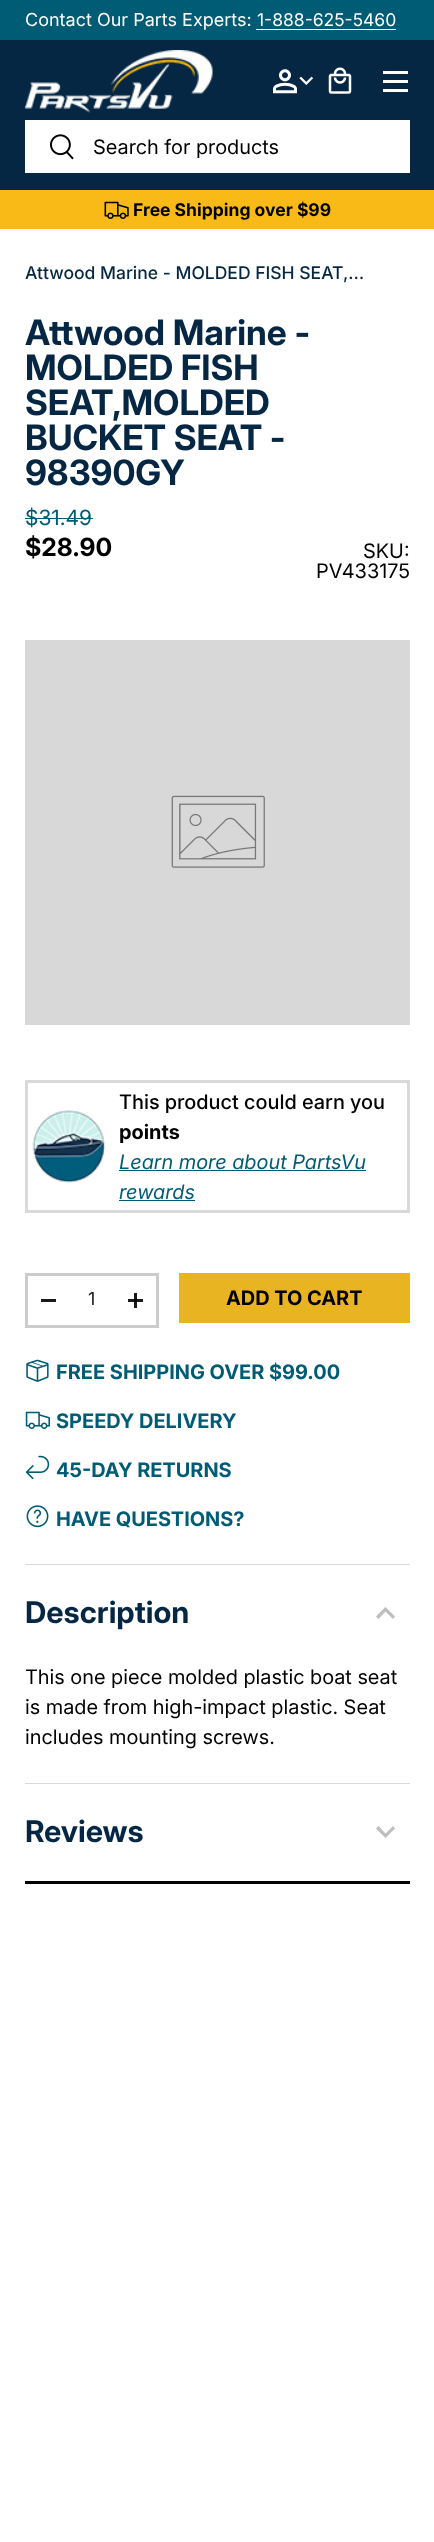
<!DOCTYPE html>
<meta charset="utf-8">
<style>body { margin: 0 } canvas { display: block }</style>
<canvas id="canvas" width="434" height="2542"></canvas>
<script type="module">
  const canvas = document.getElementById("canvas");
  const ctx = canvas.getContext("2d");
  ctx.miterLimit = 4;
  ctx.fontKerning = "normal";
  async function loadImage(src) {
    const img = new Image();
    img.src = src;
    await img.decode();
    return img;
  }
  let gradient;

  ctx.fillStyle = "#ffffff";
  ctx.fillRect(0, 0, 434, 2542);
  ctx.fillStyle = "#191919";
  ctx.fillRect(134, 1293, 3, 15);
  ctx.fillStyle = "#005b75";
  ctx.fillRect(0, 0, 434, 40);
  ctx.font = "18px 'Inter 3'";
  ctx.fillStyle = "#ffffff";
  ctx.fillText("Contact Our Parts Experts:", 25, 26);
  ctx.font = "17.5px 'Inter 3'";
  ctx.fillText("1-888-625-5460", 257, 26);
  ctx.fillRect(256, 29, 140, 1);
  ctx.fillStyle = "#062743";
  ctx.fillRect(0, 40, 434, 150);
  ctx.drawImage(await loadImage("img1.png"), 25, 50, 188, 63);
  ctx.drawImage(await loadImage("img2.png"), 273, 69, 24, 25);
  ctx.drawImage(await loadImage("img3.png"), 299, 76, 14, 9);
  ctx.drawImage(await loadImage("img4.png"), 328, 67, 24, 27);
  ctx.fillStyle = "#ffffff";
  ctx.fillRect(383, 71, 25, 3);
  ctx.fillRect(383, 89, 25, 3);
  ctx.fillRect(383, 80, 25, 3);
  ctx.fillRect(25, 120, 385, 53);
  ctx.drawImage(await loadImage("img5.png"), 50, 134, 24, 26);
  ctx.font = "20px Inter";
  ctx.fillStyle = "#000000";
  ctx.fillText("Search for products", 93, 154);
  ctx.fillStyle = "#f9ba17";
  ctx.fillRect(0, 190, 434, 39);
  ctx.drawImage(await loadImage("img6.png"), 104, 201, 25, 18);
  ctx.font = "bold 17.5px 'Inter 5'";
  ctx.fillStyle = "#000000";
  ctx.fillText("Free Shipping over $99", 133, 216);
  ctx.font = "500 17.5px 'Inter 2'";
  ctx.fillStyle = "#062743";
  ctx.fillText("Attwood Marine - MOLDED FISH SEAT,…", 25, 279);
  ctx.font = "bold 35px Inter";
  ctx.fillText("Attwood Marine -", 25, 345);
  ctx.fillText("MOLDED FISH", 25, 380);
  ctx.fillText("SEAT,MOLDED", 25, 415);
  ctx.fillText("BUCKET SEAT -", 25, 450);
  ctx.fillText("98390GY", 25, 485);
  ctx.font = "21px 'Inter 2'";
  ctx.fillStyle = "#005b75";
  ctx.fillText("$31.49", 25, 525);
  ctx.fillRect(25, 518, 68, 1);
  ctx.font = "bold 25px 'Inter 2'";
  ctx.fillStyle = "#000000";
  ctx.fillText("$28.90", 25, 556);
  ctx.font = "20px Inter";
  ctx.fillText("SKU:", 363, 558);
  ctx.fillText("PV433175", 316, 578);
  ctx.fillStyle = "#d8d8d8";
  ctx.fillRect(25, 640, 385, 385);
  ctx.drawImage(await loadImage("img7.png"), 171, 795, 94, 73);
  ctx.strokeStyle = "#d9d9d9";
  ctx.lineWidth = 3;
  ctx.strokeRect(26.5, 1081.5, 382, 130);
  ctx.drawImage(await loadImage("img8.png"), 32, 1110, 74, 73);
  ctx.font = "500 20px Inter";
  ctx.fillStyle = "#000000";
  ctx.fillText("This product could earn you", 119, 1109);
  ctx.font = "bold 20px 'Inter 3'";
  ctx.fillText("points", 119, 1139);
  ctx.font = "italic 20px Inter";
  ctx.fillStyle = "#005b75";
  ctx.fillText("Learn more about PartsVu", 119, 1169);
  ctx.fillRect(119, 1170, 247, 1);
  ctx.fillText("rewards", 119, 1199);
  ctx.fillRect(119, 1200, 76, 1);
  ctx.strokeStyle = "#cccccc";
  ctx.strokeRect(26.5, 1274.5, 131, 52);
  ctx.fillStyle = "#1a1a1a";
  ctx.fillRect(41, 1299, 15, 3);
  ctx.font = "18px 'Inter 3'";
  ctx.fillText("1", 88, 1305);
  ctx.fillRect(128, 1299, 15, 3);
  ctx.fillStyle = "#030303";
  ctx.fillRect(134, 1299, 3, 3);
  gradient = ctx.createLinearGradient(-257, 1217, 393, 1378);
  gradient.addColorStop(0.6, "#fbcd4f");
  gradient.addColorStop(0.6, "#e9b422");
  gradient.addColorStop(1, "#e9b422");
  ctx.fillStyle = gradient;
  ctx.fillRect(182, 1276, 225, 44);
  ctx.strokeStyle = "#e9b422";
  ctx.strokeRect(180.5, 1274.5, 228, 47);
  ctx.font = "bold 20px 'Inter 3'";
  ctx.fillStyle = "#000000";
  ctx.fillText("ADD TO CART", 226, 1305);
  ctx.drawImage(await loadImage("img9.png"), 26, 1359, 23, 23);
  ctx.fillStyle = "#005b75";
  ctx.fillText("FREE SHIPPING OVER $99.00", 56, 1379);
  ctx.drawImage(await loadImage("img10.png"), 25, 1411, 25, 18);
  ctx.fillText("SPEEDY DELIVERY", 56, 1428);
  ctx.drawImage(await loadImage("img11.png"), 25, 1455, 25, 25);
  ctx.fillText("45-DAY RETURNS", 56, 1477);
  ctx.drawImage(await loadImage("img12.png"), 26, 1505, 23, 23);
  ctx.fillText("HAVE QUESTIONS?", 56, 1526);
  ctx.fillStyle = "#d9d9d9";
  ctx.fillRect(25, 1564, 385, 1);
  ctx.fillRect(25, 1783, 385, 1);
  ctx.font = "bold 30px 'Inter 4'";
  ctx.fillStyle = "#062743";
  ctx.fillText("Description", 25, 1623);
  ctx.fillStyle = "#bebebe";
  ctx.beginPath();
  ctx.moveTo(385.5, 1607);
  ctx.lineTo(376, 1616.5);
  ctx.lineTo(378.5, 1619);
  ctx.lineTo(385.5, 1611.5);
  ctx.lineTo(393, 1619);
  ctx.lineTo(395, 1616.5);
  ctx.closePath();
  ctx.fill();
  ctx.font = "20px Inter";
  ctx.fillStyle = "#000000";
  ctx.fillText("This one piece molded plastic boat seat", 25, 1684);
  ctx.fillText("is made from high-impact plastic. Seat", 25, 1714);
  ctx.fillText("includes mounting screws.", 25, 1744);
  ctx.fillRect(25, 1881, 385, 3);
  ctx.font = "bold 30px 'Inter 4'";
  ctx.fillStyle = "#062743";
  ctx.fillText("Reviews", 25, 1842);
  ctx.fillStyle = "#bebebe";
  ctx.beginPath();
  ctx.moveTo(385.5, 1838);
  ctx.lineTo(376, 1828.5);
  ctx.lineTo(378.5, 1826);
  ctx.lineTo(385.5, 1833.5);
  ctx.lineTo(393, 1826);
  ctx.lineTo(395, 1828.5);
  ctx.closePath();
  ctx.fill();
</script>
